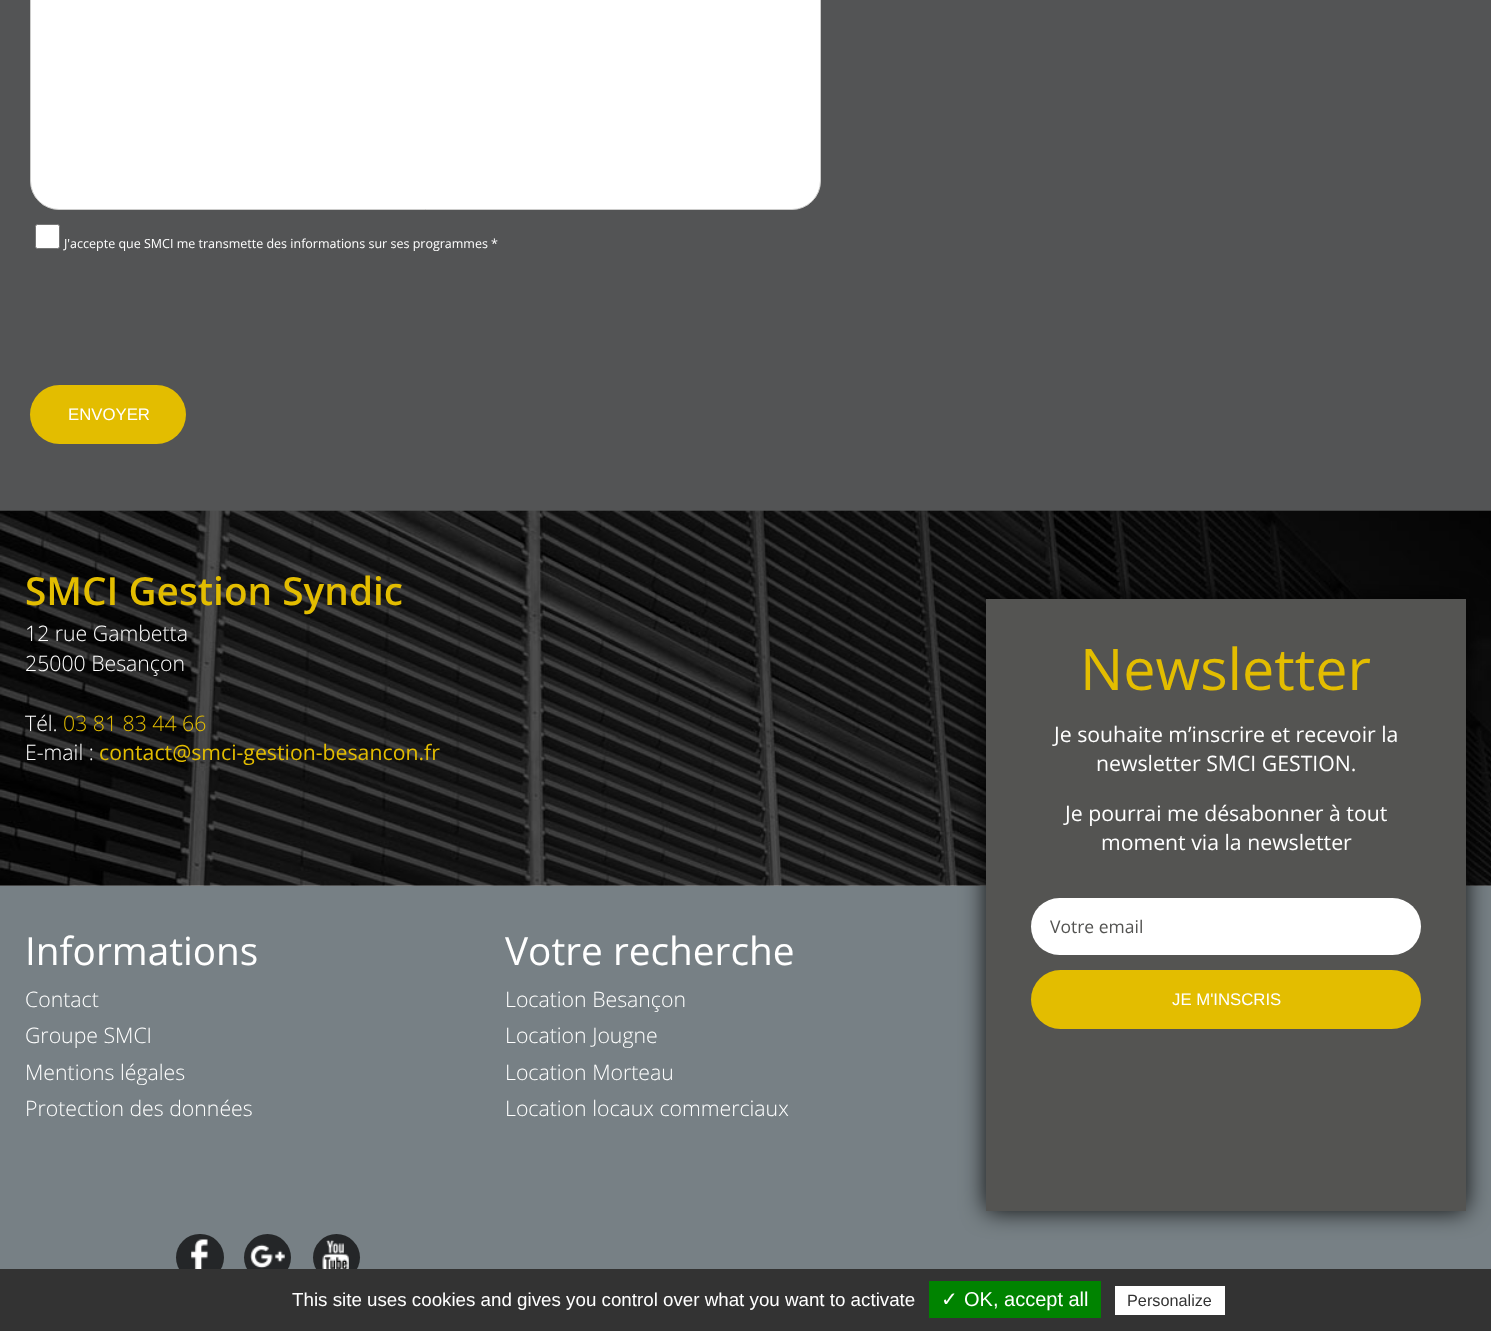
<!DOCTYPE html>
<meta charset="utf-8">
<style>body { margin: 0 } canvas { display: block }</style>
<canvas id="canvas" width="1491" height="1331"></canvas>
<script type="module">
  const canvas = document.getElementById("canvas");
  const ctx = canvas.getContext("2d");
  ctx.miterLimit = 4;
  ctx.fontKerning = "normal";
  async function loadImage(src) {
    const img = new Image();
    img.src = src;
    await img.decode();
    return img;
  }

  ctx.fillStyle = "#ffffff";
  ctx.fillRect(0, 0, 1491, 1331);
  ctx.fillStyle = "#535455";
  ctx.fillRect(0, 0, 1491, 511);
  ctx.fillStyle = "#ffffff";
  ctx.beginPath();
  ctx.roundRect(30.5, -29.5, 790, 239, 28.5);
  ctx.fill();
  ctx.strokeStyle = "#cccccb";
  ctx.stroke();
  ctx.beginPath();
  ctx.roundRect(35.5, 224.5, 24, 24, 2);
  ctx.fill();
  ctx.strokeStyle = "#767676";
  ctx.stroke();
  ctx.font = "12.5px Open Sans";
  ctx.fillText("J'accepte que SMCI me transmette des informations sur ses programmes *", 64, 248);
  ctx.fillStyle = "#e3bd00";
  ctx.beginPath();
  ctx.roundRect(30, 385, 156, 59, 29.5);
  ctx.fill();
  ctx.font = "16.75px Liberation Sans";
  ctx.fillStyle = "#ffffff";
  ctx.fillText("ENVOYER", 68, 420);
  ctx.drawImage(await loadImage("img1.png"), 0, 510, 1491, 376);
  ctx.font = "600 38.75px Open Sans";
  ctx.fillStyle = "#e3bd00";
  ctx.fillText("SMCI Gestion Syndic", 25, 605);
  ctx.font = "300 21.25px Open Sans";
  ctx.fillStyle = "#ffffff";
  ctx.fillText("12 rue Gambetta", 25, 641);
  ctx.fillText("25000 Besançon", 25, 671);
  ctx.fillText("Tél.", 25, 731);
  ctx.fillStyle = "#e3bd00";
  ctx.fillText("03 81 83 44 66", 63, 731);
  ctx.fillStyle = "#ffffff";
  ctx.fillText("E-mail :", 25, 760);
  ctx.font = "21.25px Open Sans";
  ctx.fillStyle = "#e3bd00";
  ctx.fillText("contact@smci-gestion-besancon.fr", 99, 760);
  ctx.fillStyle = "#778085";
  ctx.fillRect(0, 886, 1491, 383);
  ctx.fillStyle = "rgba(0, 0, 0, 0.9)";
  ctx.filter = "blur(12.5px)";
  ctx.beginPath();
  ctx.rect(986, 599, 480, 612);
  ctx.fill();
  ctx.filter = "none";
  ctx.fillStyle = "#545452";
  ctx.fillRect(986, 599, 480, 612);
  ctx.font = "57.5px Open Sans";
  ctx.fillStyle = "#e3bd00";
  ctx.fillText("Newsletter", 1080, 690);
  ctx.font = "21.25px Open Sans";
  ctx.fillStyle = "#ffffff";
  ctx.fillText("Je souhaite m’inscrire et recevoir la", 1054, 742);
  ctx.fillText("newsletter SMCI GESTION.", 1096, 771);
  ctx.fillText("Je pourrai me désabonner à tout", 1065, 821);
  ctx.fillText("moment via la newsletter", 1101, 850);
  ctx.beginPath();
  ctx.roundRect(1031, 898, 390, 57, 28.5);
  ctx.fill();
  ctx.font = "17.5px Open Sans";
  ctx.fillStyle = "#545452";
  ctx.fillText("Votre email", 1050, 933);
  ctx.fillStyle = "#e3bd00";
  ctx.beginPath();
  ctx.roundRect(1031, 970, 390, 59, 29.5);
  ctx.fill();
  ctx.font = "16.75px Liberation Sans";
  ctx.fillStyle = "#ffffff";
  ctx.fillText("JE M'INSCRIS", 1172, 1005);
  ctx.font = "38.75px Open Sans";
  ctx.fillText("Informations", 25, 965);
  ctx.font = "300 21.25px Open Sans";
  ctx.fillText("Contact", 25, 1007);
  ctx.fillText("Groupe SMCI", 25, 1043);
  ctx.fillText("Mentions légales", 25, 1080);
  ctx.fillText("Protection des données", 25, 1116);
  ctx.font = "38.75px Open Sans";
  ctx.fillText("Votre recherche", 505, 965);
  ctx.font = "300 21.25px Open Sans";
  ctx.fillText("Location Besançon", 505, 1007);
  ctx.fillText("Location Jougne", 505, 1043);
  ctx.fillText("Location Morteau", 505, 1080);
  ctx.fillText("Location locaux commerciaux", 505, 1116);
  ctx.fillStyle = "#242628";
  ctx.beginPath();
  ctx.roundRect(176, 1234, 48, 47, 23.5);
  ctx.fill();
  ctx.drawImage(await loadImage("img2.png"), 191, 1239, 17, 30);
  ctx.beginPath();
  ctx.arc(267.5, 1257.5, 23.5, 0, Math.PI * 2);
  ctx.fill();
  ctx.drawImage(await loadImage("img3.png"), 250, 1244, 35, 25);
  ctx.beginPath();
  ctx.arc(336.5, 1257.5, 23.5, 0, Math.PI * 2);
  ctx.fill();
  ctx.drawImage(await loadImage("img4.png"), 322, 1240, 27, 29);
  ctx.fillStyle = "#333333";
  ctx.fillRect(0, 1269, 1491, 62);
  ctx.font = "18.75px Liberation Sans";
  ctx.fillStyle = "#ffffff";
  ctx.fillText("This site uses cookies and gives you control over what you want to activate", 292, 1306);
  ctx.fillStyle = "#008300";
  ctx.fillRect(929, 1281, 172, 37);
  ctx.font = "20px DejaVu Sans";
  ctx.fillStyle = "#ffffff";
  ctx.fillText("✓", 941, 1306);
  ctx.font = "20px Liberation Sans";
  ctx.fillText("OK, accept all", 964, 1306);
  ctx.fillRect(1115, 1286, 110, 29);
  ctx.font = "16.25px Liberation Sans";
  ctx.fillStyle = "#333333";
  ctx.fillText("Personalize", 1127, 1306);
</script>
